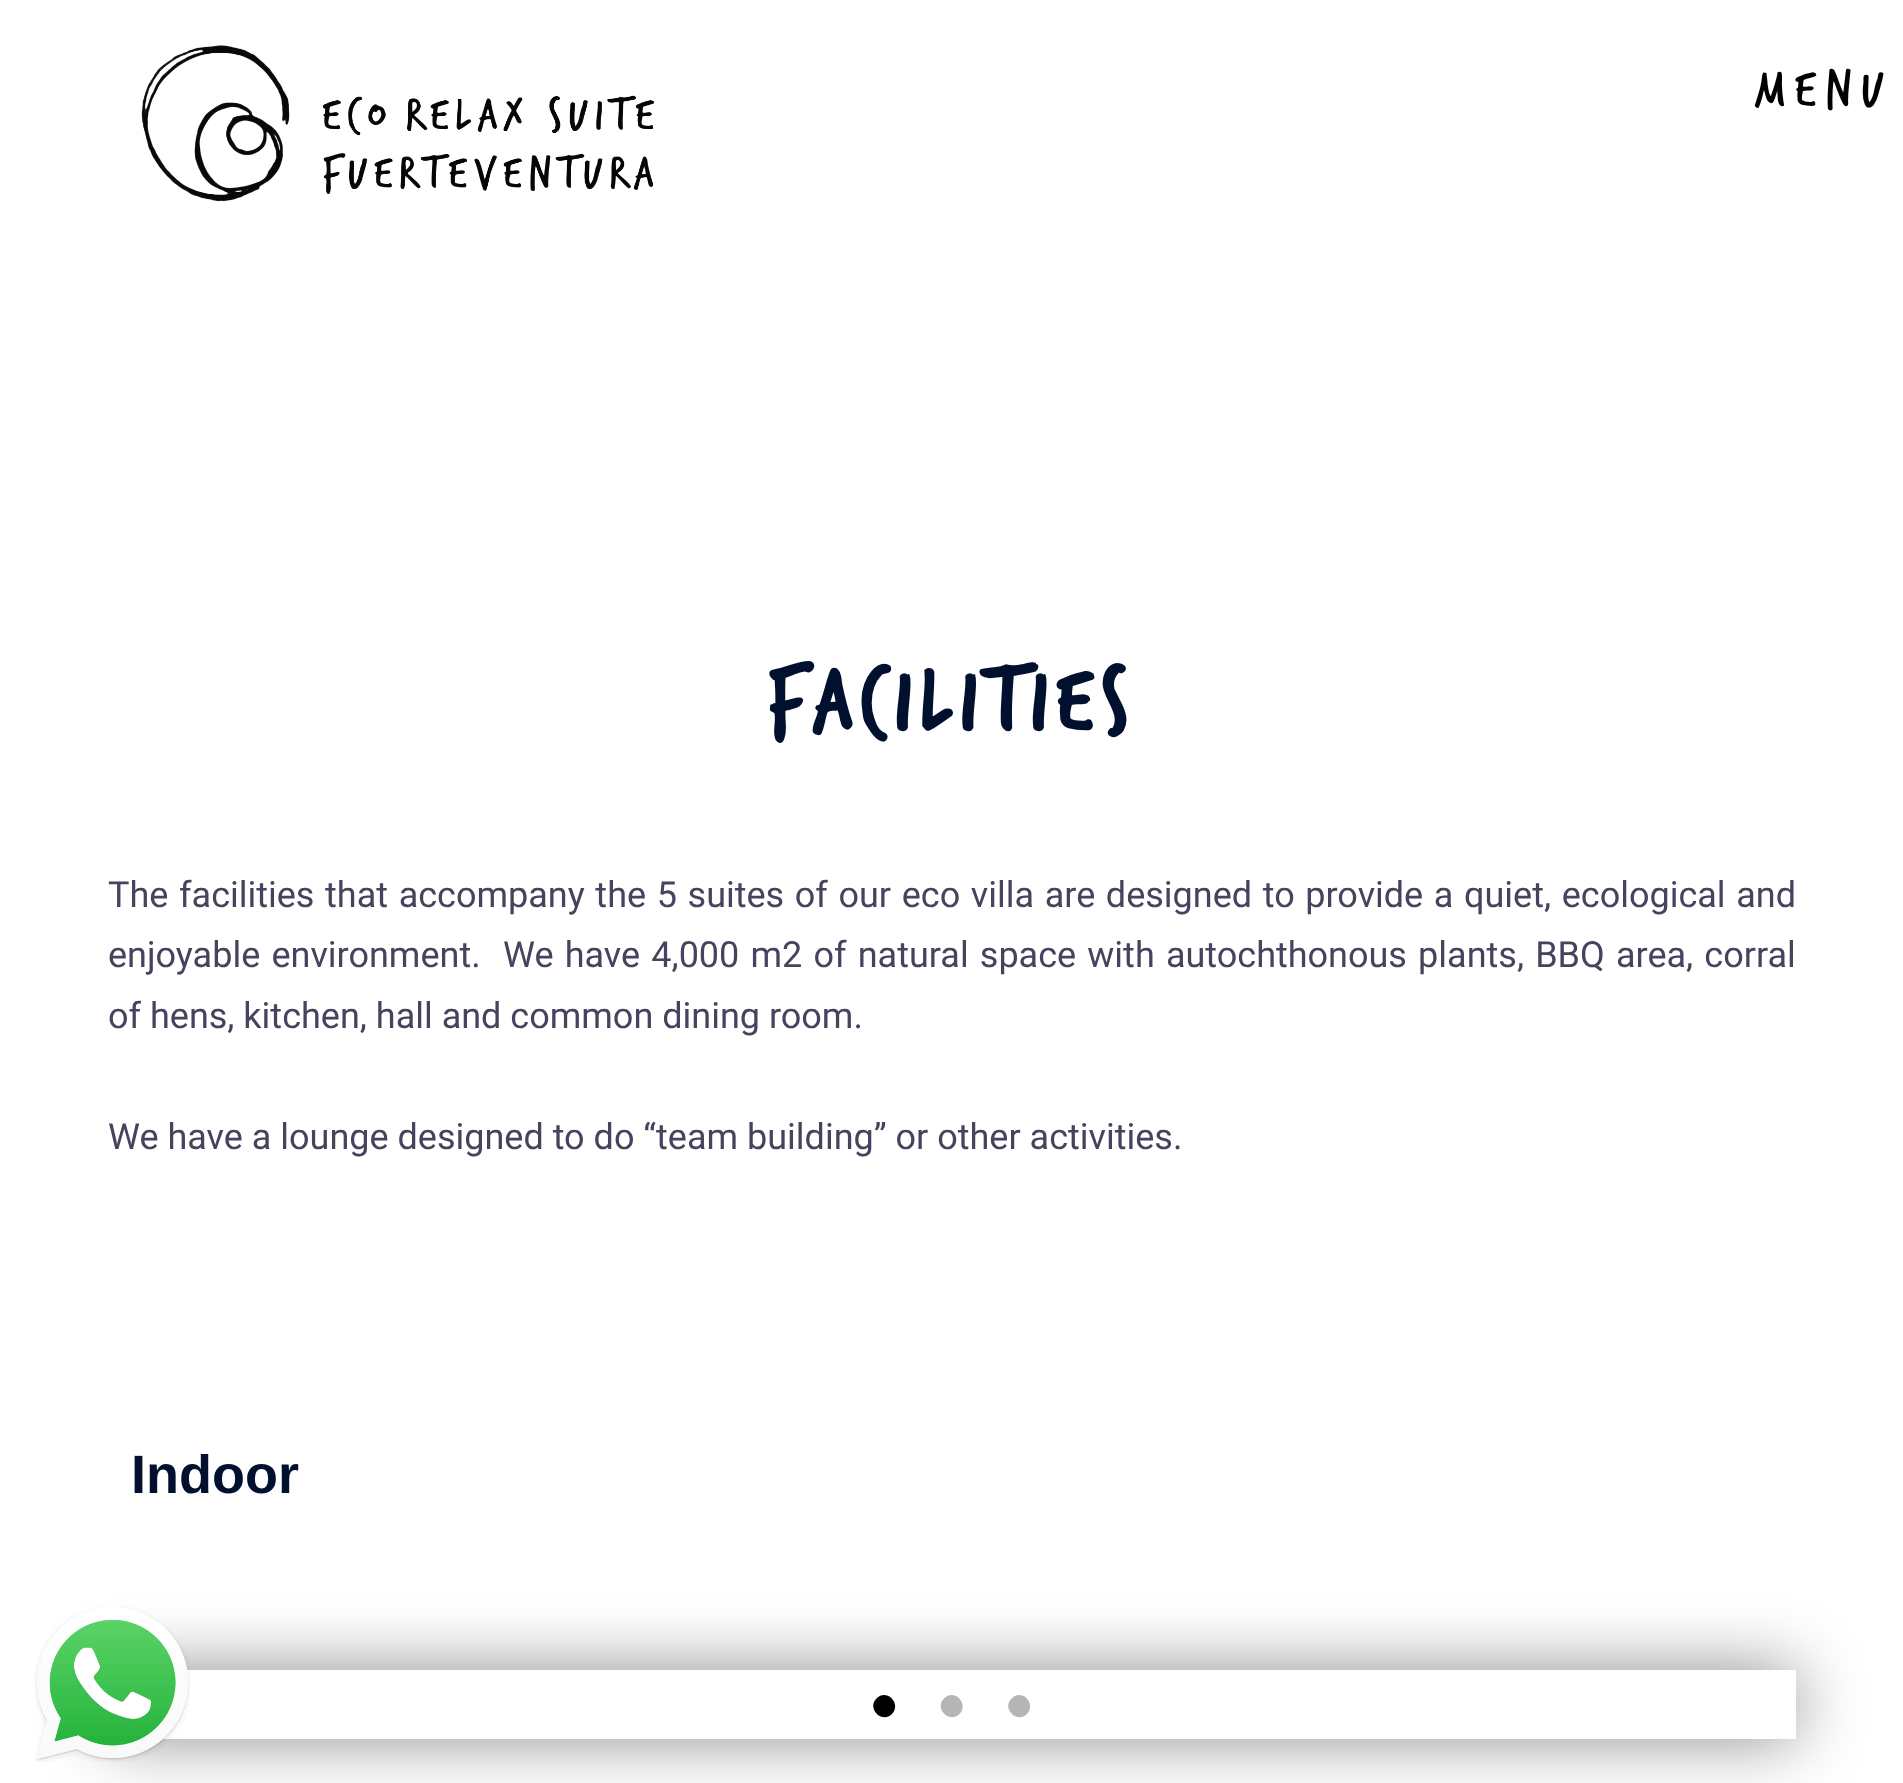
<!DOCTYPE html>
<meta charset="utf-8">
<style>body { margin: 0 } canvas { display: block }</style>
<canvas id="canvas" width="1903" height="1783"></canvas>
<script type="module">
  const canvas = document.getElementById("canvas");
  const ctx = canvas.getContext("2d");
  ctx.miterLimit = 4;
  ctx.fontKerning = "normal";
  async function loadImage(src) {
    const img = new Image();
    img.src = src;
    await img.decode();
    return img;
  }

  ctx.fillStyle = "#ffffff";
  ctx.fillRect(0, 0, 1903, 1783);
  ctx.drawImage(await loadImage("img1.png"), 141, 45, 513, 157);
  ctx.letterSpacing = "9.75px";
  ctx.font = "56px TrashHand";
  ctx.fillStyle = "#000000";
  ctx.fillText("MENU", 1755, 104);
  ctx.font = "bold 94.5px TrashHand";
  ctx.fillStyle = "#00102e";
  ctx.fillText("FACILITIES", 767, 727);
  ctx.letterSpacing = "0px";
  ctx.wordSpacing = "1.7px";
  ctx.font = "36px Roboto";
  ctx.fillStyle = "#47425d";
  ctx.fillText("The facilities that accompany the 5 suites of our eco villa are designed to provide a quiet, ecological and", 108, 907);
  ctx.wordSpacing = "2.25px";
  ctx.fillText("enjoyable environment.  We have 4,000 m2 of natural space with autochthonous plants, BBQ area, corral", 108, 967);
  ctx.wordSpacing = "0px";
  ctx.fillText("of hens, kitchen, hall and common dining room.", 108, 1028);
  ctx.fillText("We have a lounge designed to do “team building” or other activities.", 108, 1149);
  ctx.font = "bold 54px Liberation Sans";
  ctx.fillStyle = "#00102e";
  ctx.fillText("Indoor", 131, 1493);
  ctx.save();
  ctx.beginPath();
  ctx.moveTo(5, 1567);
  ctx.lineTo(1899, 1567);
  ctx.lineTo(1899, 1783);
  ctx.lineTo(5, 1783);
  ctx.closePath();
  ctx.moveTo(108, 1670);
  ctx.lineTo(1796, 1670);
  ctx.lineTo(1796, 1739);
  ctx.lineTo(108, 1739);
  ctx.closePath();
  ctx.clip("evenodd");
  ctx.fillStyle = "rgba(0, 0, 0, 0.46)";
  ctx.filter = "blur(34px)";
  ctx.beginPath();
  ctx.rect(108, 1670, 1688, 69);
  ctx.fill();
  ctx.filter = "none";
  ctx.restore();
  ctx.fillStyle = "#000000";
  ctx.beginPath();
  ctx.moveTo(876.5, 1698.5);
  ctx.bezierCurveTo(886.5, 1688, 902, 1703.5, 892, 1714);
  ctx.bezierCurveTo(882, 1724, 866.5, 1708.5, 876.5, 1698.5);
  ctx.closePath();
  ctx.fill();
  ctx.fillStyle = "#b5b5b5";
  ctx.beginPath();
  ctx.moveTo(944, 1698.5);
  ctx.bezierCurveTo(954, 1688, 969.5, 1703.5, 959.5, 1714);
  ctx.bezierCurveTo(949.5, 1724, 934, 1708.5, 944, 1698.5);
  ctx.closePath();
  ctx.fill();
  ctx.beginPath();
  ctx.moveTo(1011.5, 1698.5);
  ctx.bezierCurveTo(1021.5, 1688, 1037, 1703.5, 1027, 1714);
  ctx.bezierCurveTo(1017, 1724, 1001.5, 1708.5, 1011.5, 1698.5);
  ctx.closePath();
  ctx.fill();
  ctx.drawImage(await loadImage("img2.png"), 35, 1606, 155, 156);
</script>
